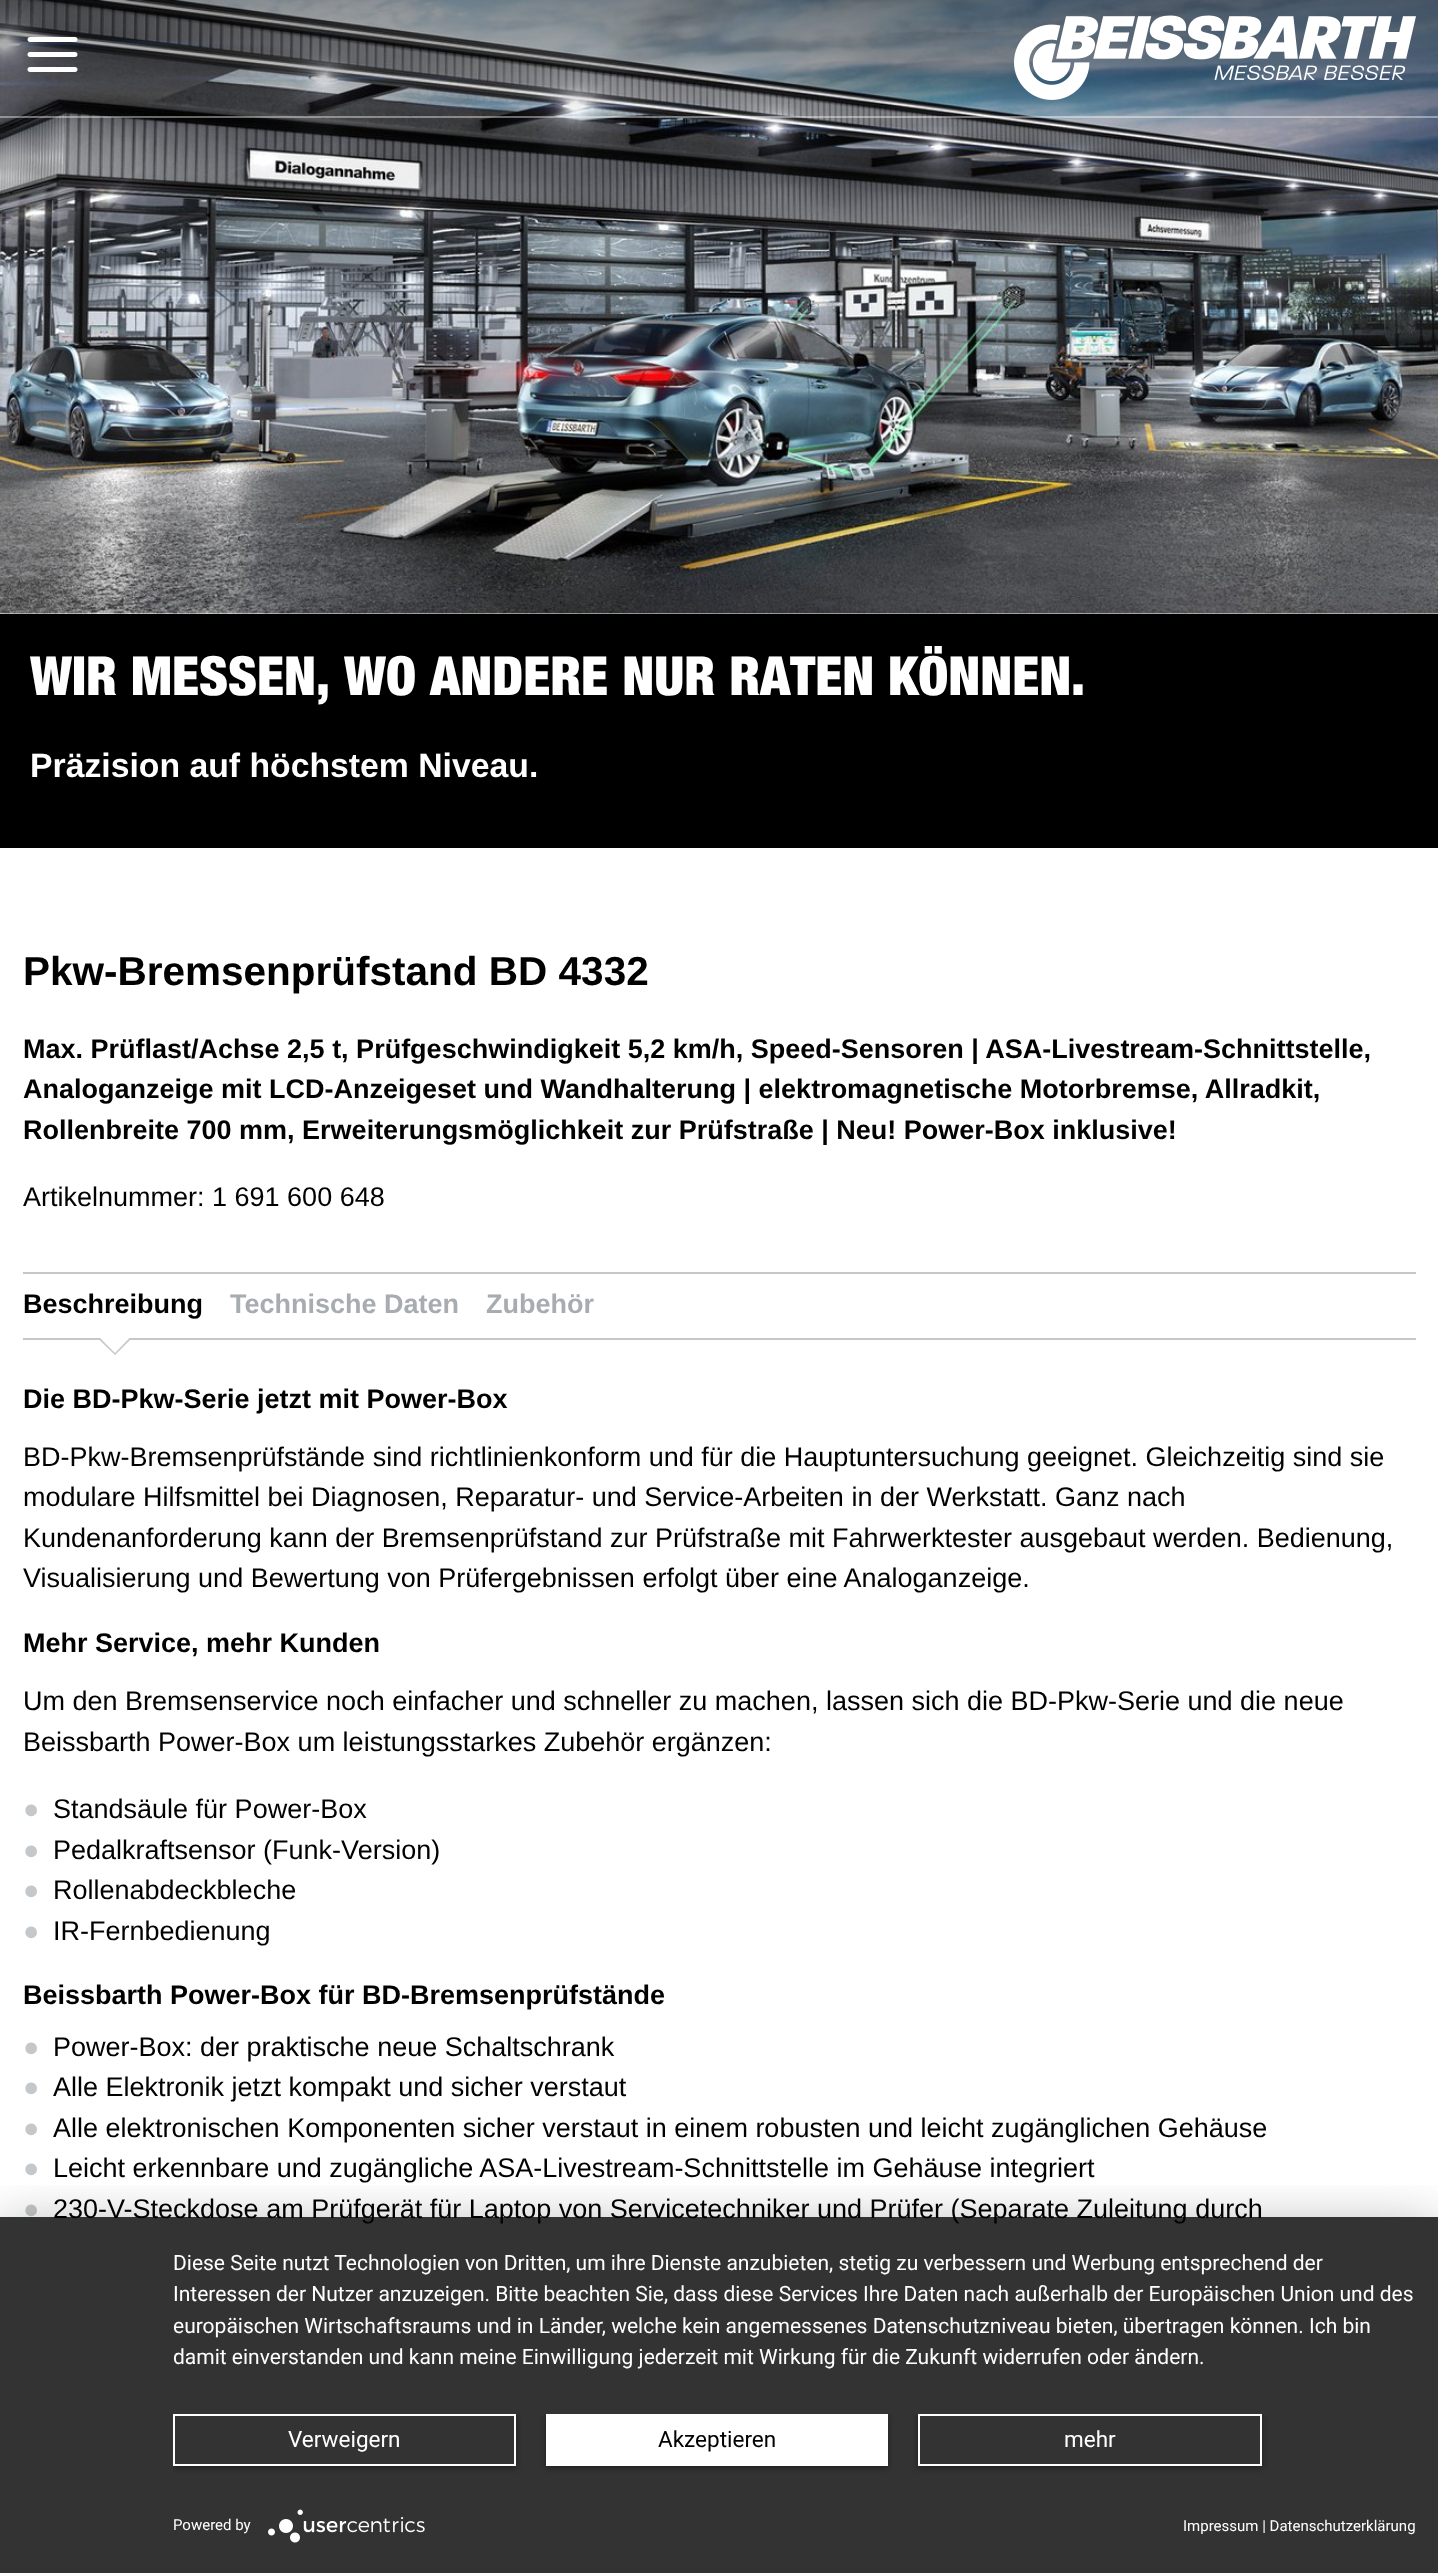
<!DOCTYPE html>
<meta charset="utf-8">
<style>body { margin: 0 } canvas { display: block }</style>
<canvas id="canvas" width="1438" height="2573"></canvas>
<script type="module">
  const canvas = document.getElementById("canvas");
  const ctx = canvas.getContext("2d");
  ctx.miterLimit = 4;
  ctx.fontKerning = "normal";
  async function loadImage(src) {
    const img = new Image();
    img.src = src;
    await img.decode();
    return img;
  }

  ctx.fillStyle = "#ffffff";
  ctx.fillRect(0, 0, 1438, 2573);
  ctx.drawImage(await loadImage("img3.png"), 0, 0, 1438, 614);
  ctx.drawImage(await loadImage("img1.png"), 27, 37, 51, 35);
  ctx.drawImage(await loadImage("img2.png"), 1014, 15, 402, 85);
  ctx.fillStyle = "rgba(255, 255, 255, 0.4)";
  ctx.fillRect(0, 116, 1438, 2);
  ctx.fillStyle = "#000000";
  ctx.fillRect(0, 614, 1438, 234);
  ctx.font = "54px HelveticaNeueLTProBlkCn";
  ctx.fillStyle = "#ffffff";
  ctx.fillText("WIR MESSEN, WO ANDERE NUR RATEN KÖNNEN.", 30, 695);
  ctx.font = "bold 33.75px Liberation Sans";
  ctx.fillText("Präzision auf höchstem Niveau.", 30, 777);
  ctx.font = "bold 40.5px Liberation Sans";
  ctx.fillStyle = "#000000";
  ctx.fillText("Pkw-Bremsenprüfstand BD 4332", 23, 985);
  ctx.font = "bold 27px Liberation Sans";
  ctx.fillText("Max. Prüflast/Achse 2,5 t, Prüfgeschwindigkeit 5,2 km/h, Speed-Sensoren | ASA-Livestream-Schnittstelle,", 23, 1058);
  ctx.fillText("Analoganzeige mit LCD-Anzeigeset und Wandhalterung | elektromagnetische Motorbremse, Allradkit,", 23, 1098);
  ctx.fillText("Rollenbreite 700 mm, Erweiterungsmöglichkeit zur Prüfstraße | Neu! Power-Box inklusive!", 23, 1139);
  ctx.font = "27px Liberation Sans";
  ctx.fillText("Artikelnummer: 1 691 600 648", 23, 1206);
  ctx.fillStyle = "#c4c8cb";
  ctx.fillRect(23, 1272, 1393, 2);
  ctx.fillRect(23, 1338, 1393, 2);
  ctx.font = "bold 27px Liberation Sans";
  ctx.fillStyle = "#000000";
  ctx.fillText("Beschreibung", 23, 1313);
  ctx.fillStyle = "#ffffff";
  ctx.beginPath();
  ctx.moveTo(115, 1323.5);
  ctx.lineTo(130.5, 1339.5);
  ctx.lineTo(115, 1355);
  ctx.lineTo(99, 1339.5);
  ctx.closePath();
  ctx.fill();
  ctx.fillStyle = "rgba(107, 117, 124, 0.4)";
  ctx.beginPath();
  ctx.moveTo(130.5, 1339.5);
  ctx.lineTo(115, 1355);
  ctx.lineTo(115, 1353);
  ctx.lineTo(129.5, 1338);
  ctx.closePath();
  ctx.moveTo(115, 1355);
  ctx.lineTo(99, 1339.5);
  ctx.lineTo(100, 1338);
  ctx.lineTo(115, 1353);
  ctx.closePath();
  ctx.fill();
  ctx.fillStyle = "#a6acb0";
  ctx.fillText("Technische Daten", 230, 1313);
  ctx.fillText("Zubehör", 486, 1313);
  ctx.fillStyle = "#000000";
  ctx.fillText("Die BD-Pkw-Serie jetzt mit Power-Box", 23, 1408);
  ctx.font = "27px Liberation Sans";
  ctx.fillText("BD-Pkw-Bremsenprüfstände sind richtlinienkonform und für die Hauptuntersuchung geeignet. Gleichzeitig sind sie", 23, 1466);
  ctx.fillText("modulare Hilfsmittel bei Diagnosen, Reparatur- und Service-Arbeiten in der Werkstatt. Ganz nach", 23, 1506);
  ctx.fillText("Kundenanforderung kann der Bremsenprüfstand zur Prüfstraße mit Fahrwerktester ausgebaut werden. Bedienung,", 23, 1547);
  ctx.fillText("Visualisierung und Bewertung von Prüfergebnissen erfolgt über eine Analoganzeige.", 23, 1587);
  ctx.font = "bold 27px Liberation Sans";
  ctx.fillText("Mehr Service, mehr Kunden", 23, 1652);
  ctx.font = "27px Liberation Sans";
  ctx.fillText("Um den Bremsenservice noch einfacher und schneller zu machen, lassen sich die BD-Pkw-Serie und die neue", 23, 1710);
  ctx.fillText("Beissbarth Power-Box um leistungsstarkes Zubehör ergänzen:", 23, 1751);
  ctx.font = "bold 27px Liberation Sans";
  ctx.fillStyle = "#c4c8cb";
  ctx.fillText("●", 23, 1818);
  ctx.font = "27px Liberation Sans";
  ctx.fillStyle = "#000000";
  ctx.fillText("Standsäule für Power-Box", 53, 1818);
  ctx.font = "bold 27px Liberation Sans";
  ctx.fillStyle = "#c4c8cb";
  ctx.fillText("●", 23, 1859);
  ctx.font = "27px Liberation Sans";
  ctx.fillStyle = "#000000";
  ctx.fillText("Pedalkraftsensor (Funk-Version)", 53, 1859);
  ctx.font = "bold 27px Liberation Sans";
  ctx.fillStyle = "#c4c8cb";
  ctx.fillText("●", 23, 1899);
  ctx.font = "27px Liberation Sans";
  ctx.fillStyle = "#000000";
  ctx.fillText("Rollenabdeckbleche", 53, 1899);
  ctx.font = "bold 27px Liberation Sans";
  ctx.fillStyle = "#c4c8cb";
  ctx.fillText("●", 23, 1940);
  ctx.font = "27px Liberation Sans";
  ctx.fillStyle = "#000000";
  ctx.fillText("IR-Fernbedienung", 53, 1940);
  ctx.font = "bold 27px Liberation Sans";
  ctx.fillText("Beissbarth Power-Box für BD-Bremsenprüfstände", 23, 2004);
  ctx.fillStyle = "#c4c8cb";
  ctx.fillText("●", 23, 2056);
  ctx.font = "27px Liberation Sans";
  ctx.fillStyle = "#000000";
  ctx.fillText("Power-Box: der praktische neue Schaltschrank", 53, 2056);
  ctx.font = "bold 27px Liberation Sans";
  ctx.fillStyle = "#c4c8cb";
  ctx.fillText("●", 23, 2096);
  ctx.font = "27px Liberation Sans";
  ctx.fillStyle = "#000000";
  ctx.fillText("Alle Elektronik jetzt kompakt und sicher verstaut", 53, 2096);
  ctx.font = "bold 27px Liberation Sans";
  ctx.fillStyle = "#c4c8cb";
  ctx.fillText("●", 23, 2137);
  ctx.font = "27px Liberation Sans";
  ctx.fillStyle = "#000000";
  ctx.fillText("Alle elektronischen Komponenten sicher verstaut in einem robusten und leicht zugänglichen Gehäuse", 53, 2137);
  ctx.font = "bold 27px Liberation Sans";
  ctx.fillStyle = "#c4c8cb";
  ctx.fillText("●", 23, 2177);
  ctx.font = "27px Liberation Sans";
  ctx.fillStyle = "#000000";
  ctx.fillText("Leicht erkennbare und zugängliche ASA-Livestream-Schnittstelle im Gehäuse integriert", 53, 2177);
  ctx.font = "bold 27px Liberation Sans";
  ctx.fillStyle = "#c4c8cb";
  ctx.fillText("●", 23, 2218);
  ctx.font = "27px Liberation Sans";
  ctx.fillStyle = "#000000";
  ctx.fillText("230-V-Steckdose am Prüfgerät für Laptop von Servicetechniker und Prüfer (Separate Zuleitung durch", 53, 2218);
  ctx.save();
  ctx.beginPath();
  ctx.rect(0, 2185, 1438, 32);
  ctx.clip();
  ctx.fillStyle = "rgba(0, 0, 0, 0.3)";
  ctx.filter = "blur(27px)";
  ctx.beginPath();
  ctx.rect(0, 2226, 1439, 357);
  ctx.fill();
  ctx.filter = "none";
  ctx.restore();
  ctx.fillStyle = "rgba(0, 0, 0, 0.8)";
  ctx.fillRect(0, 2217, 1438, 356);
  ctx.font = "21px Roboto";
  ctx.fillStyle = "#ffffff";
  ctx.fillText("Diese Seite nutzt Technologien von Dritten, um ihre Dienste anzubieten, stetig zu verbessern und Werbung entsprechend der", 173, 2270);
  ctx.fillText("Interessen der Nutzer anzuzeigen. Bitte beachten Sie, dass diese Services Ihre Daten nach außerhalb der Europäischen Union und des", 173, 2301);
  ctx.fillText("europäischen Wirtschaftsraums und in Länder, welche kein angemessenes Datenschutzniveau bieten, übertragen können. Ich bin", 173, 2333);
  ctx.fillText("damit einverstanden und kann meine Einwilligung jederzeit mit Wirkung für die Zukunft widerrufen oder ändern.", 173, 2364);
  ctx.save();
  ctx.beginPath();
  ctx.rect(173, 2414, 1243, 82);
  ctx.clip();
  ctx.beginPath();
  ctx.moveTo(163, 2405);
  ctx.lineTo(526, 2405);
  ctx.lineTo(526, 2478);
  ctx.lineTo(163, 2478);
  ctx.closePath();
  ctx.moveTo(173, 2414);
  ctx.lineTo(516, 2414);
  ctx.lineTo(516, 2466);
  ctx.lineTo(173, 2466);
  ctx.closePath();
  ctx.clip("evenodd");
  ctx.fillStyle = "rgba(0, 0, 0, 0.4)";
  ctx.filter = "blur(3px)";
  ctx.beginPath();
  ctx.rect(173, 2415, 343, 53);
  ctx.fill();
  ctx.filter = "none";
  ctx.restore();
  ctx.strokeStyle = "#ffffff";
  ctx.lineWidth = 2;
  ctx.strokeRect(174, 2415, 341, 50);
  ctx.font = "22.5px Roboto";
  ctx.fillText("Verweigern", 288, 2447);
  ctx.save();
  ctx.beginPath();
  ctx.rect(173, 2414, 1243, 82);
  ctx.clip();
  ctx.fillStyle = "rgba(0, 0, 0, 0.4)";
  ctx.filter = "blur(3px)";
  ctx.beginPath();
  ctx.rect(546, 2415, 342, 53);
  ctx.fill();
  ctx.filter = "none";
  ctx.restore();
  ctx.fillRect(546, 2414, 342, 52);
  ctx.fillStyle = "#000000";
  ctx.fillText("Akzeptieren", 658, 2447);
  ctx.save();
  ctx.beginPath();
  ctx.rect(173, 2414, 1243, 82);
  ctx.clip();
  ctx.beginPath();
  ctx.moveTo(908, 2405);
  ctx.lineTo(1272, 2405);
  ctx.lineTo(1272, 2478);
  ctx.lineTo(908, 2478);
  ctx.closePath();
  ctx.moveTo(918, 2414);
  ctx.lineTo(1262, 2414);
  ctx.lineTo(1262, 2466);
  ctx.lineTo(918, 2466);
  ctx.closePath();
  ctx.clip("evenodd");
  ctx.fillStyle = "rgba(0, 0, 0, 0.4)";
  ctx.filter = "blur(3px)";
  ctx.beginPath();
  ctx.rect(918, 2415, 344, 53);
  ctx.fill();
  ctx.filter = "none";
  ctx.restore();
  ctx.strokeRect(919, 2415, 342, 50);
  ctx.fillStyle = "#ffffff";
  ctx.fillText("mehr", 1064, 2447);
  ctx.font = "15px Roboto";
  ctx.fillText("Powered by", 173, 2530);
  ctx.drawImage(await loadImage("img4.png"), 268, 2509, 157, 34);
  ctx.fillText("Impressum | Datenschutzerklärung", 1183, 2531);
</script>
